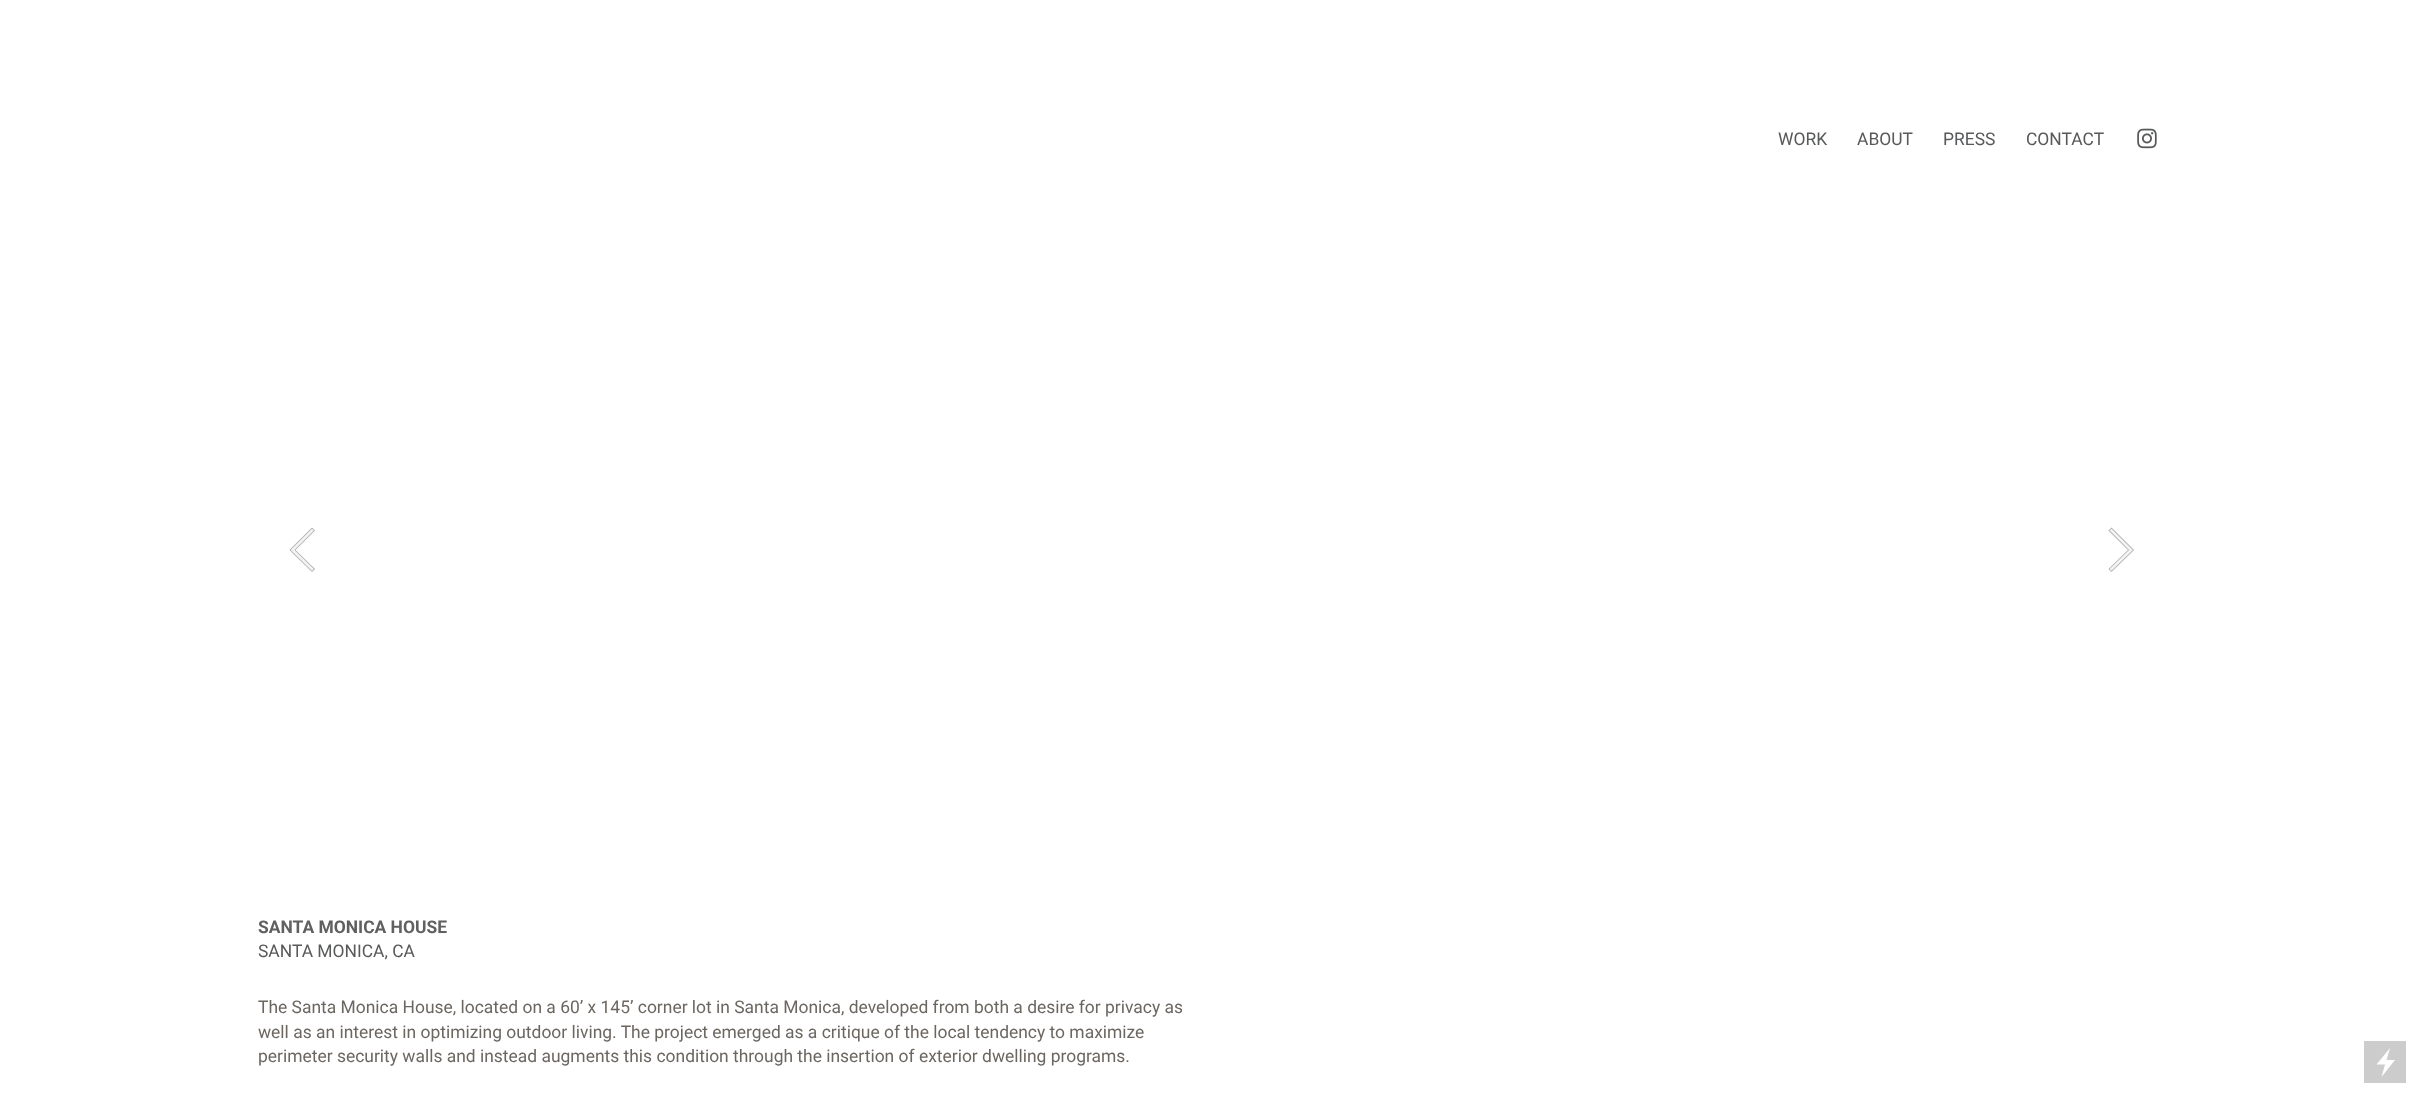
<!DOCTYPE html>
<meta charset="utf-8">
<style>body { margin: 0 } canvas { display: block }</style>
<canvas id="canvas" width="2423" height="1100"></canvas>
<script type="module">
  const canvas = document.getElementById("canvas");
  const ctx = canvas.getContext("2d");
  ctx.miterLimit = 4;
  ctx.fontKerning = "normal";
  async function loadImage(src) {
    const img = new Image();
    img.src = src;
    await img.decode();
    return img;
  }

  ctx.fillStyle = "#ffffff";
  ctx.fillRect(0, 0, 2423, 1100);
  ctx.font = "17.45px Roboto";
  ctx.fillStyle = "#58595a";
  ctx.fillText("WORK", 1778, 145);
  ctx.fillText("ABOUT", 1857, 145);
  ctx.fillText("PRESS", 1943, 145);
  ctx.fillText("CONTACT", 2026, 145);
  ctx.drawImage(await loadImage("img1.png"), 2137, 128, 20, 21);
  ctx.beginPath();
  ctx.moveTo(312, 569);
  ctx.lineTo(292.5, 550);
  ctx.lineTo(312, 530.5);
  ctx.strokeStyle = "#b3b3b3";
  ctx.lineWidth = 4.4;
  ctx.lineCap = "square";
  ctx.stroke();
  ctx.beginPath();
  ctx.moveTo(312, 569);
  ctx.lineTo(292.5, 550);
  ctx.lineTo(312, 530.5);
  ctx.strokeStyle = "#f3f3f3";
  ctx.lineWidth = 2.6;
  ctx.stroke();
  ctx.beginPath();
  ctx.moveTo(2111.5, 569);
  ctx.lineTo(2131, 550);
  ctx.lineTo(2111.5, 530.5);
  ctx.strokeStyle = "#b3b3b3";
  ctx.lineWidth = 4.4;
  ctx.stroke();
  ctx.beginPath();
  ctx.moveTo(2111.5, 569);
  ctx.lineTo(2131, 550);
  ctx.lineTo(2111.5, 530.5);
  ctx.strokeStyle = "#f3f3f3";
  ctx.lineWidth = 2.6;
  ctx.stroke();
  ctx.font = "bold 17.45px Roboto";
  ctx.fillStyle = "#606060";
  ctx.fillText("SANTA MONICA HOUSE", 258, 933);
  ctx.font = "17.45px Roboto";
  ctx.fillStyle = "#58595a";
  ctx.fillText("SANTA MONICA, CA", 258, 957);
  ctx.fillStyle = "#6c6660";
  ctx.fillText("The Santa Monica House, located on a 60’ x 145’ corner lot in Santa Monica, developed from both a desire for privacy as", 258, 1013);
  ctx.fillText("well as an interest in optimizing outdoor living. The project emerged as a critique of the local tendency to maximize", 258, 1038);
  ctx.fillText("perimeter security walls and instead augments this condition through the insertion of exterior dwelling programs.", 258, 1062);
  ctx.fillStyle = "#cccccc";
  ctx.fillRect(2364, 1041, 42, 42);
  ctx.fillStyle = "#ffffff";
  ctx.beginPath();
  ctx.moveTo(2395, 1060);
  ctx.lineTo(2386.5, 1060);
  ctx.lineTo(2390, 1048);
  ctx.lineTo(2376.5, 1064.5);
  ctx.lineTo(2385, 1064.5);
  ctx.lineTo(2381.5, 1077);
  ctx.closePath();
  ctx.fill();
</script>
